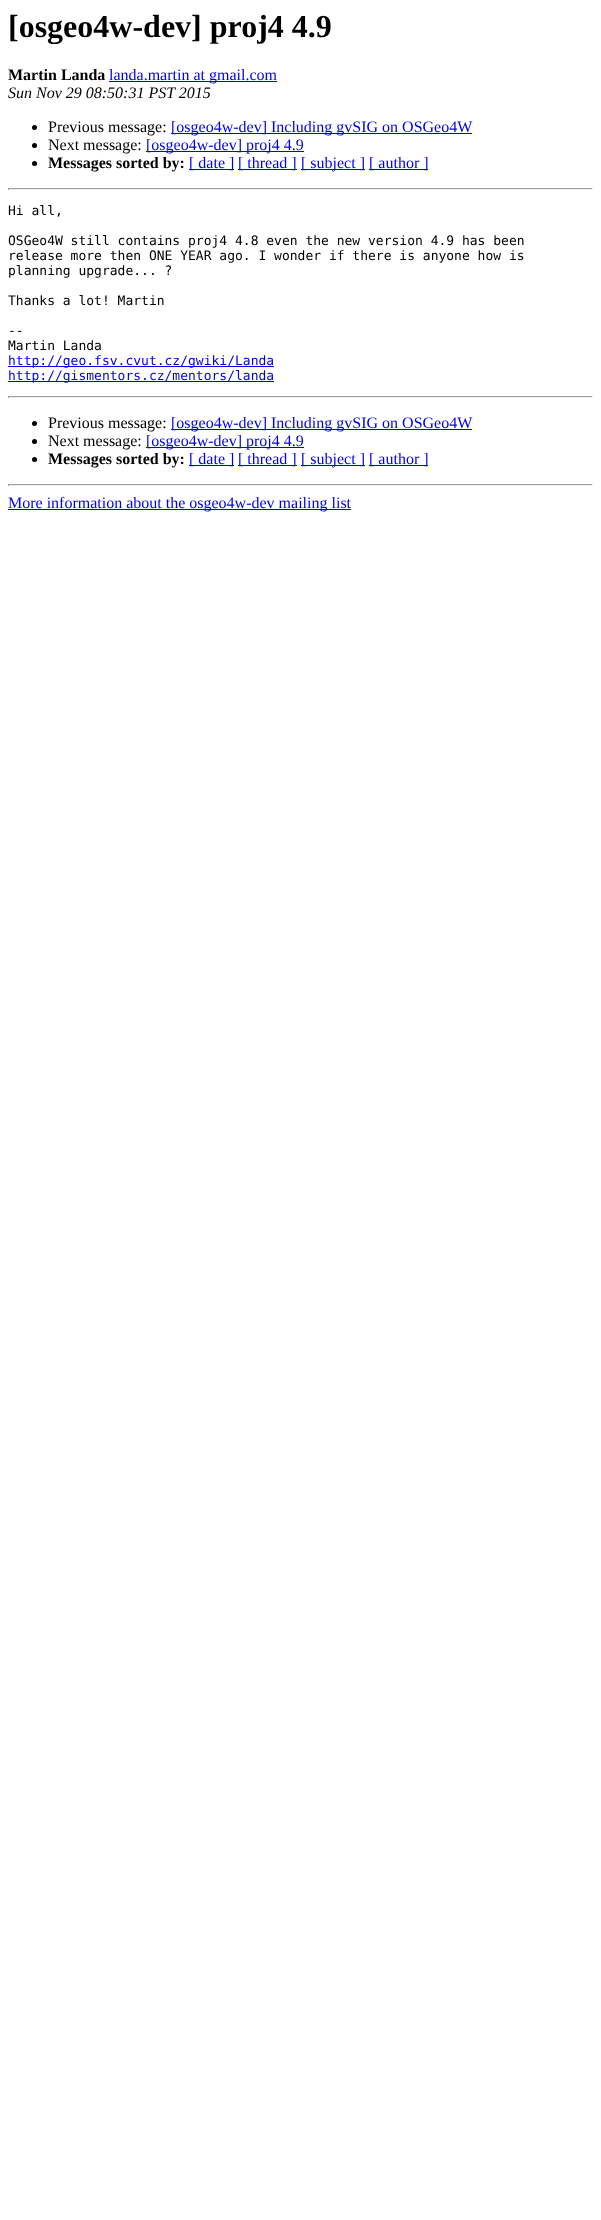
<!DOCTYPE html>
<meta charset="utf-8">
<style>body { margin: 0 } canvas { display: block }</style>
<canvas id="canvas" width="601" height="2220"></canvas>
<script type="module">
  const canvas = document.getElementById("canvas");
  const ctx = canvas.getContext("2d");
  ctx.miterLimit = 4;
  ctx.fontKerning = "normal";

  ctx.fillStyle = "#ffffff";
  ctx.fillRect(0, 0, 601, 2220);
  ctx.font = "bold 32px Liberation Serif";
  ctx.fillStyle = "#000000";
  ctx.fillText("[osgeo4w-dev] proj4 4.9", 8, 37);
  ctx.font = "bold 16px Liberation Serif";
  ctx.fillText("Martin Landa", 8, 80);
  ctx.fillStyle = "#0000ee";
  ctx.fillRect(109, 81, 168, 1);
  ctx.font = "16px Liberation Serif";
  ctx.fillText("landa.martin at gmail.com", 109, 80);
  ctx.font = "italic 16px Liberation Serif";
  ctx.fillStyle = "#000000";
  ctx.fillText("Sun Nov 29 08:50:31 PST 2015", 8, 98);
  ctx.beginPath();
  ctx.arc(34.5, 127.5, 2.5, 0, Math.PI * 2);
  ctx.fill();
  ctx.font = "16px Liberation Serif";
  ctx.fillText("Previous message:", 48, 132);
  ctx.fillStyle = "#0000ee";
  ctx.fillRect(171, 133, 301, 1);
  ctx.fillText("[osgeo4w-dev] Including gvSIG on OSGeo4W", 171, 132);
  ctx.fillStyle = "#000000";
  ctx.beginPath();
  ctx.arc(34.5, 145.5, 2.5, 0, Math.PI * 2);
  ctx.fill();
  ctx.fillText("Next message:", 48, 150);
  ctx.fillStyle = "#0000ee";
  ctx.fillRect(146, 151, 158, 1);
  ctx.fillText("[osgeo4w-dev] proj4 4.9", 146, 150);
  ctx.fillStyle = "#000000";
  ctx.beginPath();
  ctx.arc(34.5, 163.5, 2.5, 0, Math.PI * 2);
  ctx.fill();
  ctx.font = "bold 16px Liberation Serif";
  ctx.fillText("Messages sorted by:", 48, 168);
  ctx.fillStyle = "#0000ee";
  ctx.fillRect(189, 169, 45, 1);
  ctx.font = "16px Liberation Serif";
  ctx.fillText("[ date ]", 189, 168);
  ctx.fillRect(238, 169, 59, 1);
  ctx.fillText("[ thread ]", 238, 168);
  ctx.fillRect(301, 169, 64, 1);
  ctx.fillText("[ subject ]", 301, 168);
  ctx.fillRect(369, 169, 59, 1);
  ctx.fillText("[ author ]", 369, 168);
  ctx.fillStyle = "#9f9f9f";
  ctx.fillRect(8, 188, 585, 1);
  ctx.fillStyle = "#eeeeee";
  ctx.fillRect(592, 188, 1, 2);
  ctx.fillRect(8, 189, 585, 1);
  ctx.fillStyle = "#9f9f9f";
  ctx.fillRect(8, 188, 1, 2);
  ctx.font = "13px DejaVu Sans Mono";
  ctx.fillStyle = "#000000";
  ctx.fillText("Hi all,", 8, 215);
  ctx.fillText("OSGeo4W still contains proj4 4.8 even the new version 4.9 has been", 8, 245);
  ctx.fillText("release more then ONE YEAR ago. I wonder if there is anyone how is", 8, 260);
  ctx.fillText("planning upgrade... ?", 8, 275);
  ctx.fillText("Thanks a lot! Martin", 8, 305);
  ctx.fillText("--", 8, 335);
  ctx.fillText("Martin Landa", 8, 350);
  ctx.fillStyle = "#0000ee";
  ctx.fillRect(8, 366, 266, 1);
  ctx.fillText("http://geo.fsv.cvut.cz/gwiki/Landa", 8, 365);
  ctx.fillRect(8, 381, 266, 1);
  ctx.fillText("http://gismentors.cz/mentors/landa", 8, 380);
  ctx.fillStyle = "#9f9f9f";
  ctx.fillRect(8, 396, 585, 1);
  ctx.fillStyle = "#eeeeee";
  ctx.fillRect(592, 396, 1, 2);
  ctx.fillRect(8, 397, 585, 1);
  ctx.fillStyle = "#9f9f9f";
  ctx.fillRect(8, 396, 1, 2);
  ctx.fillStyle = "#000000";
  ctx.beginPath();
  ctx.arc(34.5, 423.5, 2.5, 0, Math.PI * 2);
  ctx.fill();
  ctx.font = "16px Liberation Serif";
  ctx.fillText("Previous message:", 48, 428);
  ctx.fillStyle = "#0000ee";
  ctx.fillRect(171, 429, 301, 1);
  ctx.fillText("[osgeo4w-dev] Including gvSIG on OSGeo4W", 171, 428);
  ctx.fillStyle = "#000000";
  ctx.beginPath();
  ctx.arc(34.5, 441.5, 2.5, 0, Math.PI * 2);
  ctx.fill();
  ctx.fillText("Next message:", 48, 446);
  ctx.fillStyle = "#0000ee";
  ctx.fillRect(146, 447, 158, 1);
  ctx.fillText("[osgeo4w-dev] proj4 4.9", 146, 446);
  ctx.fillStyle = "#000000";
  ctx.beginPath();
  ctx.arc(34.5, 459.5, 2.5, 0, Math.PI * 2);
  ctx.fill();
  ctx.font = "bold 16px Liberation Serif";
  ctx.fillText("Messages sorted by:", 48, 464);
  ctx.fillStyle = "#0000ee";
  ctx.fillRect(189, 465, 45, 1);
  ctx.font = "16px Liberation Serif";
  ctx.fillText("[ date ]", 189, 464);
  ctx.fillRect(238, 465, 59, 1);
  ctx.fillText("[ thread ]", 238, 464);
  ctx.fillRect(301, 465, 64, 1);
  ctx.fillText("[ subject ]", 301, 464);
  ctx.fillRect(369, 465, 59, 1);
  ctx.fillText("[ author ]", 369, 464);
  ctx.fillStyle = "#9f9f9f";
  ctx.fillRect(8, 484, 585, 1);
  ctx.fillStyle = "#eeeeee";
  ctx.fillRect(592, 484, 1, 2);
  ctx.fillRect(8, 485, 585, 1);
  ctx.fillStyle = "#9f9f9f";
  ctx.fillRect(8, 484, 1, 2);
  ctx.fillStyle = "#0000ee";
  ctx.fillRect(8, 509, 343, 1);
  ctx.fillText("More information about the osgeo4w-dev mailing list", 8, 508);
</script>
